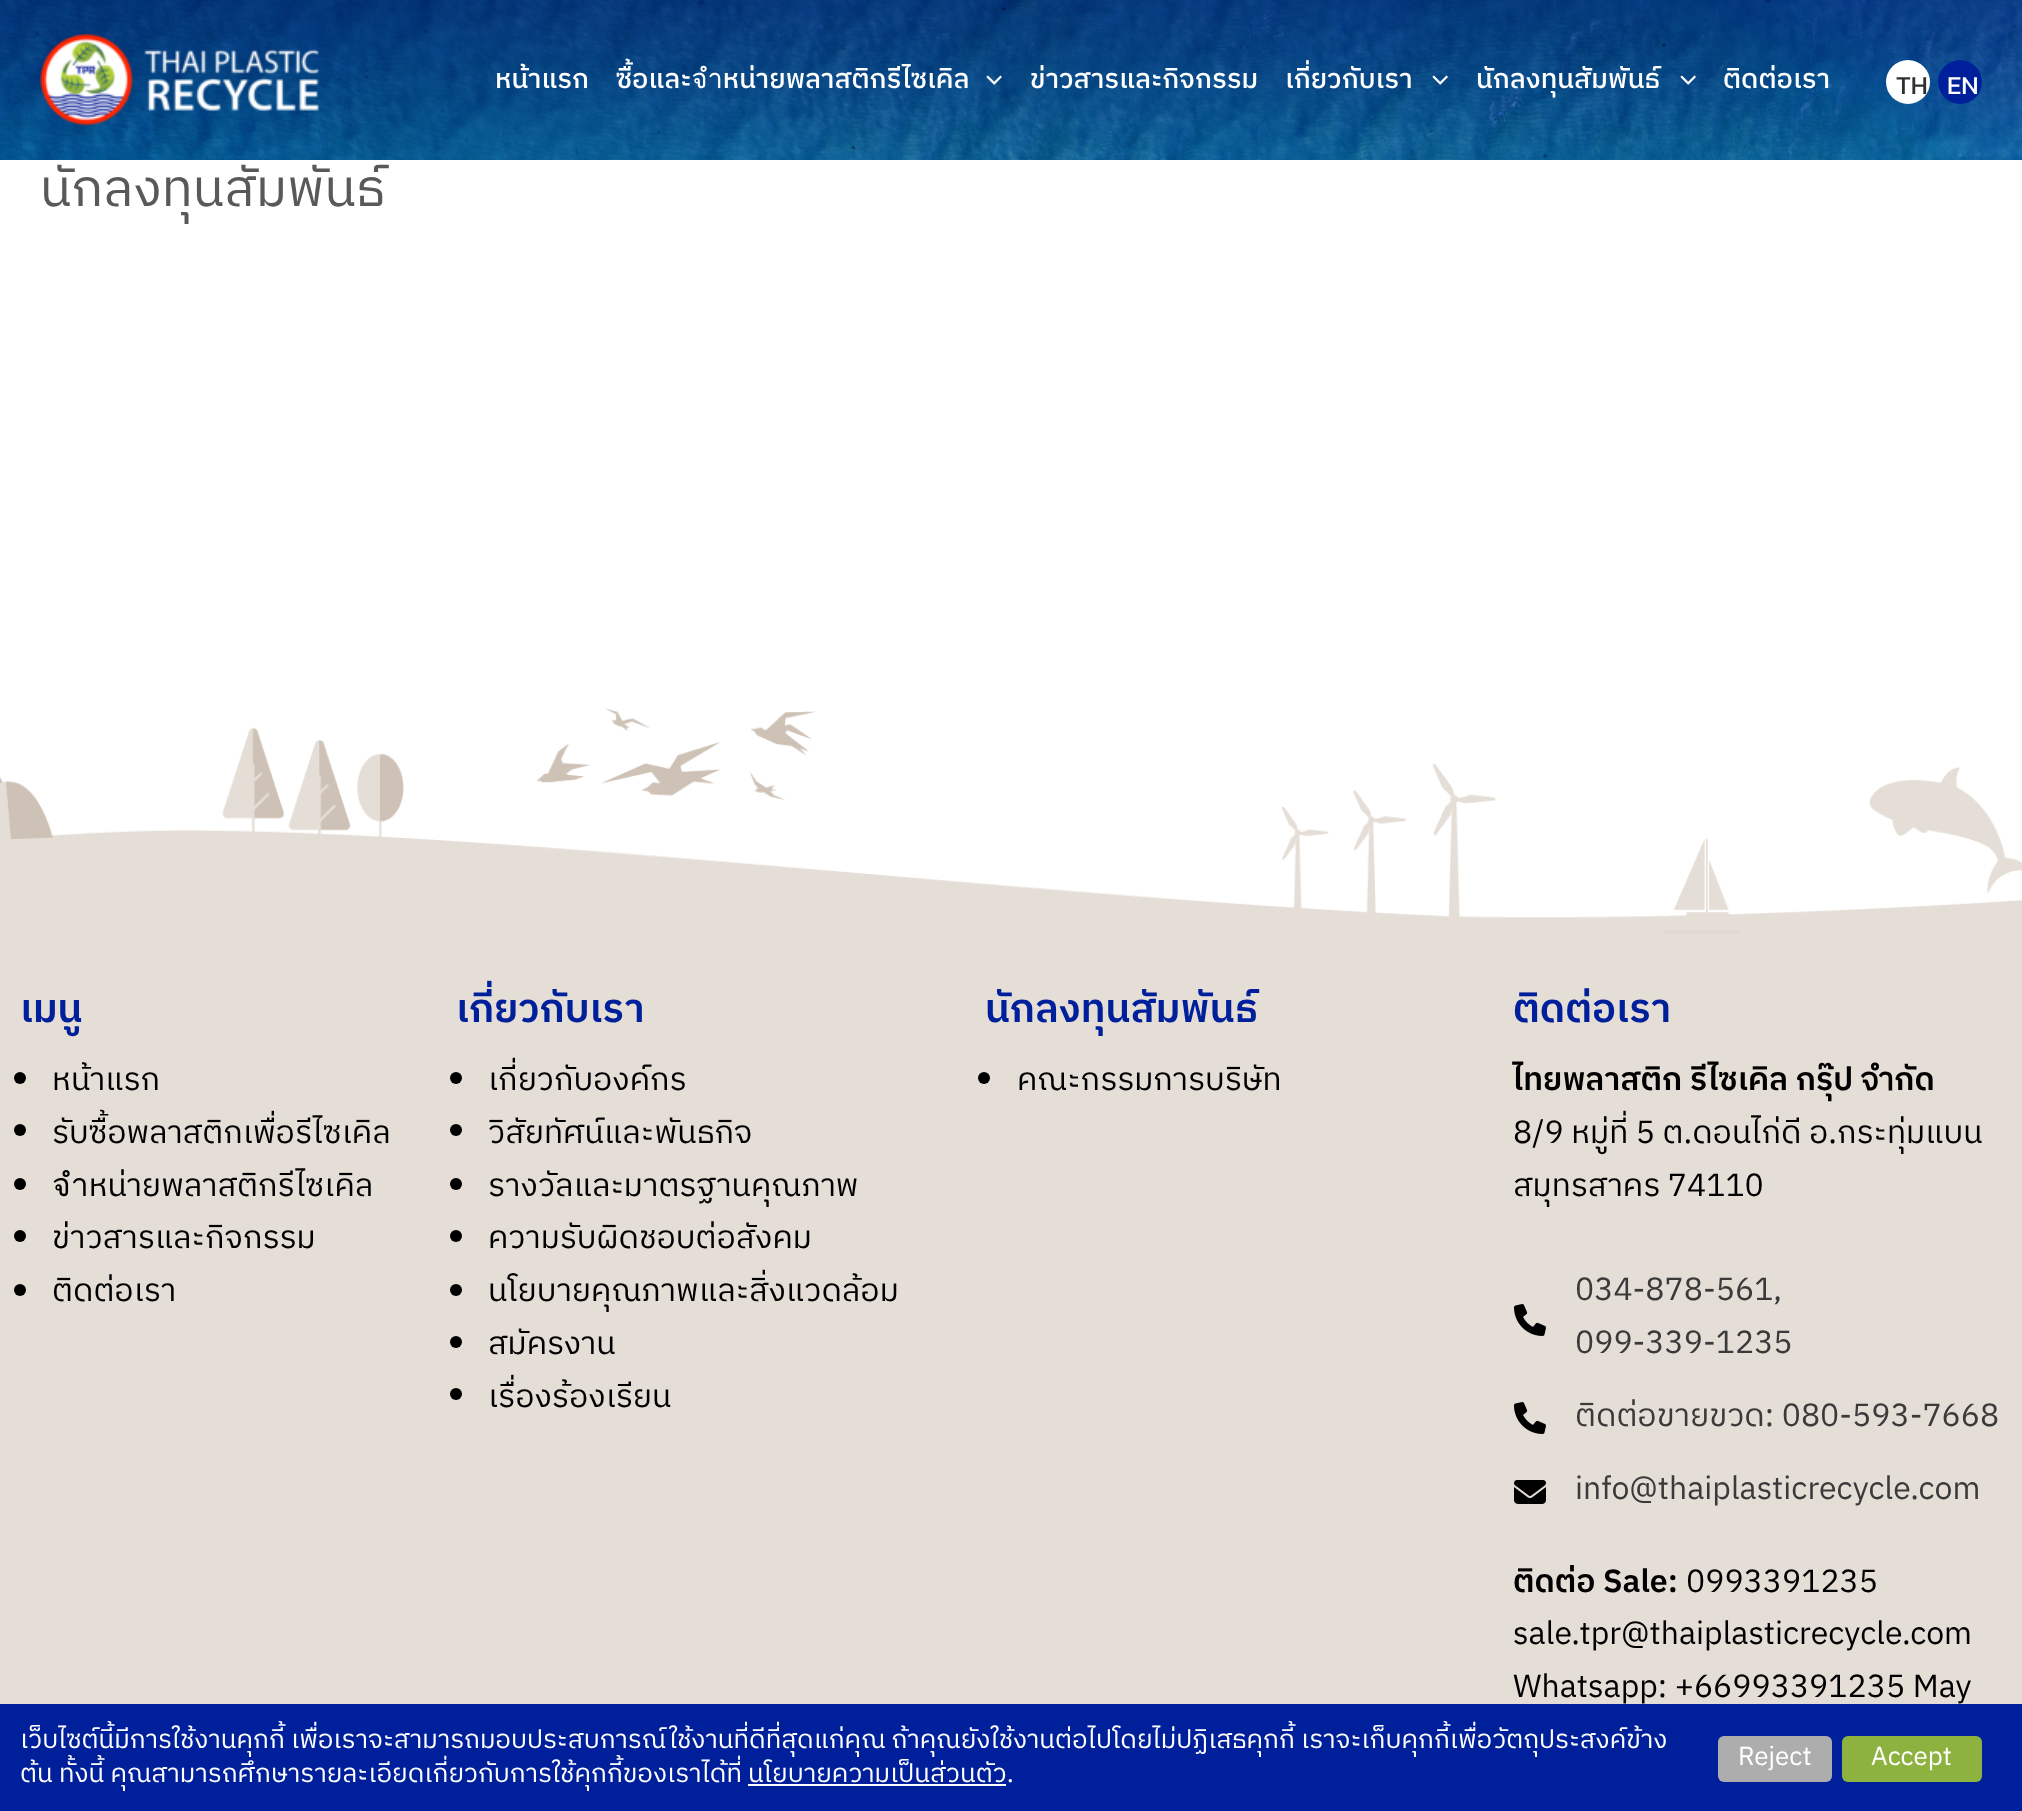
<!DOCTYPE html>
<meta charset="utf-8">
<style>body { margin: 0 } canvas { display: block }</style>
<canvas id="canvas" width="2022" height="1811"></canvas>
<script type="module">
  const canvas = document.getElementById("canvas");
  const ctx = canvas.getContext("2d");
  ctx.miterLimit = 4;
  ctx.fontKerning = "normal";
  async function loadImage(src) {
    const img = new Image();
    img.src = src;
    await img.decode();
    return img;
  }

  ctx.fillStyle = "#ffffff";
  ctx.fillRect(0, 0, 2022, 1811);
  ctx.drawImage(await loadImage("img1.png"), 0, 0, 2022, 160);
  ctx.drawImage(await loadImage("img2.png"), 40, 34, 280, 92);
  ctx.font = "500 27.25px IBM Plex Sans Thai";
  ctx.fillText("หน้าแรก", 495, 88);
  ctx.fillText("ซื้อและจำหน่ายพลาสติกรีไซเคิล", 616, 88);
  ctx.drawImage(await loadImage("img3.png"), 986, 75, 16, 10);
  ctx.fillText("ข่าวสารและกิจกรรม", 1030, 88);
  ctx.fillText("เกี่ยวกับเรา", 1285, 88);
  ctx.drawImage(await loadImage("img4.png"), 1432, 75, 16, 10);
  ctx.fillText("นักลงทุนสัมพันธ์", 1476, 88);
  ctx.drawImage(await loadImage("img5.png"), 1680, 75, 16, 10);
  ctx.fillText("ติดต่อเรา", 1723, 88);
  ctx.beginPath();
  ctx.arc(1908, 82, 22, 0, Math.PI * 2);
  ctx.fill();
  ctx.font = "26px Kanit";
  ctx.fillStyle = "#2d312f";
  ctx.fillText("TH", 1896, 94);
  ctx.fillStyle = "#00209b";
  ctx.beginPath();
  ctx.arc(1960, 82, 22, 0, Math.PI * 2);
  ctx.fill();
  ctx.fillStyle = "#ffffff";
  ctx.fillText("EN", 1947, 94);
  ctx.font = "52px IBM Plex Sans Thai";
  ctx.fillStyle = "#58595b";
  ctx.fillText("นักลงทุนสัมพันธ์", 40, 206);
  ctx.fillStyle = "#e5ded7";
  ctx.fillRect(0, 934, 2022, 770);
  ctx.drawImage(await loadImage("img6.png"), 0, 708, 2022, 226);
  ctx.font = "600 40px IBM Plex Sans Thai";
  ctx.fillStyle = "#00209b";
  ctx.fillText("เมนู", 20, 1022);
  ctx.fillStyle = "#000000";
  ctx.beginPath();
  ctx.arc(20, 1078, 6, 0, Math.PI * 2);
  ctx.fill();
  ctx.font = "32px IBM Plex Sans Thai";
  ctx.fillText("หน้าแรก", 52, 1090);
  ctx.beginPath();
  ctx.arc(20, 1130, 6, 0, Math.PI * 2);
  ctx.fill();
  ctx.fillText("รับซื้อพลาสติกเพื่อรีไซเคิล", 52, 1143);
  ctx.beginPath();
  ctx.arc(20, 1184, 6, 0, Math.PI * 2);
  ctx.fill();
  ctx.fillText("จำหน่ายพลาสติกรีไซเคิล", 52, 1196);
  ctx.beginPath();
  ctx.arc(20, 1236, 6, 0, Math.PI * 2);
  ctx.fill();
  ctx.fillText("ข่าวสารและกิจกรรม", 52, 1248);
  ctx.beginPath();
  ctx.arc(20, 1290, 6, 0, Math.PI * 2);
  ctx.fill();
  ctx.fillText("ติดต่อเรา", 52, 1301);
  ctx.font = "600 40px IBM Plex Sans Thai";
  ctx.fillStyle = "#00209b";
  ctx.fillText("เกี่ยวกับเรา", 456, 1022);
  ctx.fillStyle = "#000000";
  ctx.beginPath();
  ctx.arc(456, 1078, 6, 0, Math.PI * 2);
  ctx.fill();
  ctx.font = "32px IBM Plex Sans Thai";
  ctx.fillText("เกี่ยวกับองค์กร", 488, 1090);
  ctx.beginPath();
  ctx.arc(456, 1130, 6, 0, Math.PI * 2);
  ctx.fill();
  ctx.fillText("วิสัยทัศน์และพันธกิจ", 488, 1143);
  ctx.beginPath();
  ctx.arc(456, 1184, 6, 0, Math.PI * 2);
  ctx.fill();
  ctx.fillText("รางวัลและมาตรฐานคุณภาพ", 488, 1196);
  ctx.beginPath();
  ctx.arc(456, 1236, 6, 0, Math.PI * 2);
  ctx.fill();
  ctx.fillText("ความรับผิดชอบต่อสังคม", 488, 1248);
  ctx.beginPath();
  ctx.arc(456, 1290, 6, 0, Math.PI * 2);
  ctx.fill();
  ctx.fillText("นโยบายคุณภาพและสิ่งแวดล้อม", 488, 1301);
  ctx.beginPath();
  ctx.arc(456, 1342, 6, 0, Math.PI * 2);
  ctx.fill();
  ctx.fillText("สมัครงาน", 488, 1354);
  ctx.beginPath();
  ctx.arc(456, 1394, 6, 0, Math.PI * 2);
  ctx.fill();
  ctx.fillText("เรื่องร้องเรียน", 488, 1407);
  ctx.font = "600 40px IBM Plex Sans Thai";
  ctx.fillStyle = "#00209b";
  ctx.fillText("นักลงทุนสัมพันธ์", 985, 1022);
  ctx.fillStyle = "#000000";
  ctx.beginPath();
  ctx.arc(984, 1078, 6, 0, Math.PI * 2);
  ctx.fill();
  ctx.font = "32px IBM Plex Sans Thai";
  ctx.fillText("คณะกรรมการบริษัท", 1017, 1090);
  ctx.font = "600 40px IBM Plex Sans Thai";
  ctx.fillStyle = "#00209b";
  ctx.fillText("ติดต่อเรา", 1513, 1022);
  ctx.font = "600 32px IBM Plex Sans Thai";
  ctx.fillStyle = "#000000";
  ctx.fillText("ไทยพลาสติก รีไซเคิล กรุ๊ป จำกัด", 1513, 1090);
  ctx.font = "32px IBM Plex Sans Thai";
  ctx.fillText("8/9 หมู่ที่ 5 ต.ดอนไก่ดี อ.กระทุ่มแบน", 1513, 1143);
  ctx.fillText("สมุทรสาคร 74110", 1513, 1196);
  ctx.drawImage(await loadImage("img7.png"), 1514, 1304, 32, 32);
  ctx.fillStyle = "#3a3a3a";
  ctx.fillText("034-878-561,", 1575, 1300);
  ctx.fillText("099-339-1235", 1575, 1353);
  ctx.drawImage(await loadImage("img7.png"), 1514, 1402, 32, 32);
  ctx.fillText("ติดต่อขายขวด: 080-593-7668", 1575, 1426);
  ctx.drawImage(await loadImage("img8.png"), 1514, 1480, 32, 24);
  ctx.fillText("info@thaiplasticrecycle.com", 1575, 1499);
  ctx.font = "600 32px IBM Plex Sans Thai";
  ctx.fillStyle = "#000000";
  ctx.fillText("ติดต่อ Sale:", 1513, 1592);
  ctx.font = "32px IBM Plex Sans Thai";
  ctx.fillText("0993391235", 1686, 1592);
  ctx.fillText("sale.tpr@thaiplasticrecycle.com", 1513, 1644);
  ctx.fillText("Whatsapp: +66993391235 May", 1513, 1697);
  ctx.fillStyle = "#00209b";
  ctx.fillRect(0, 1704, 2022, 107);
  ctx.font = "26px IBM Plex Sans Thai";
  ctx.fillStyle = "#ffffff";
  ctx.fillText("เว็บไซต์นี้มีการใช้งานคุกกี้ เพื่อเราจะสามารถมอบประสบการณ์ใช้งานที่ดีที่สุดแก่คุณ ถ้าคุณยังใช้งานต่อไปโดยไม่ปฏิเสธคุกกี้ เราจะเก็บคุกกี้เพื่อวัตถุประสงค์ข้าง", 20, 1748);
  ctx.fillText("ต้น ทั้งนี้ คุณสามารถศึกษารายละเอียดเกี่ยวกับการใช้คุกกี้ของเราได้ที่ นโยบายความเป็นส่วนตัว.", 20, 1782);
  ctx.fillRect(748, 1784, 258, 2);
  ctx.fillStyle = "#adadad";
  ctx.beginPath();
  ctx.roundRect(1718, 1736, 114, 46, 6);
  ctx.fill();
  ctx.fillStyle = "#ffffff";
  ctx.fillText("Reject", 1738, 1765);
  ctx.fillStyle = "#8eb23f";
  ctx.beginPath();
  ctx.roundRect(1842, 1736, 140, 46, 6);
  ctx.fill();
  ctx.fillStyle = "#ffffff";
  ctx.fillText("Accept", 1871, 1765);
</script>
